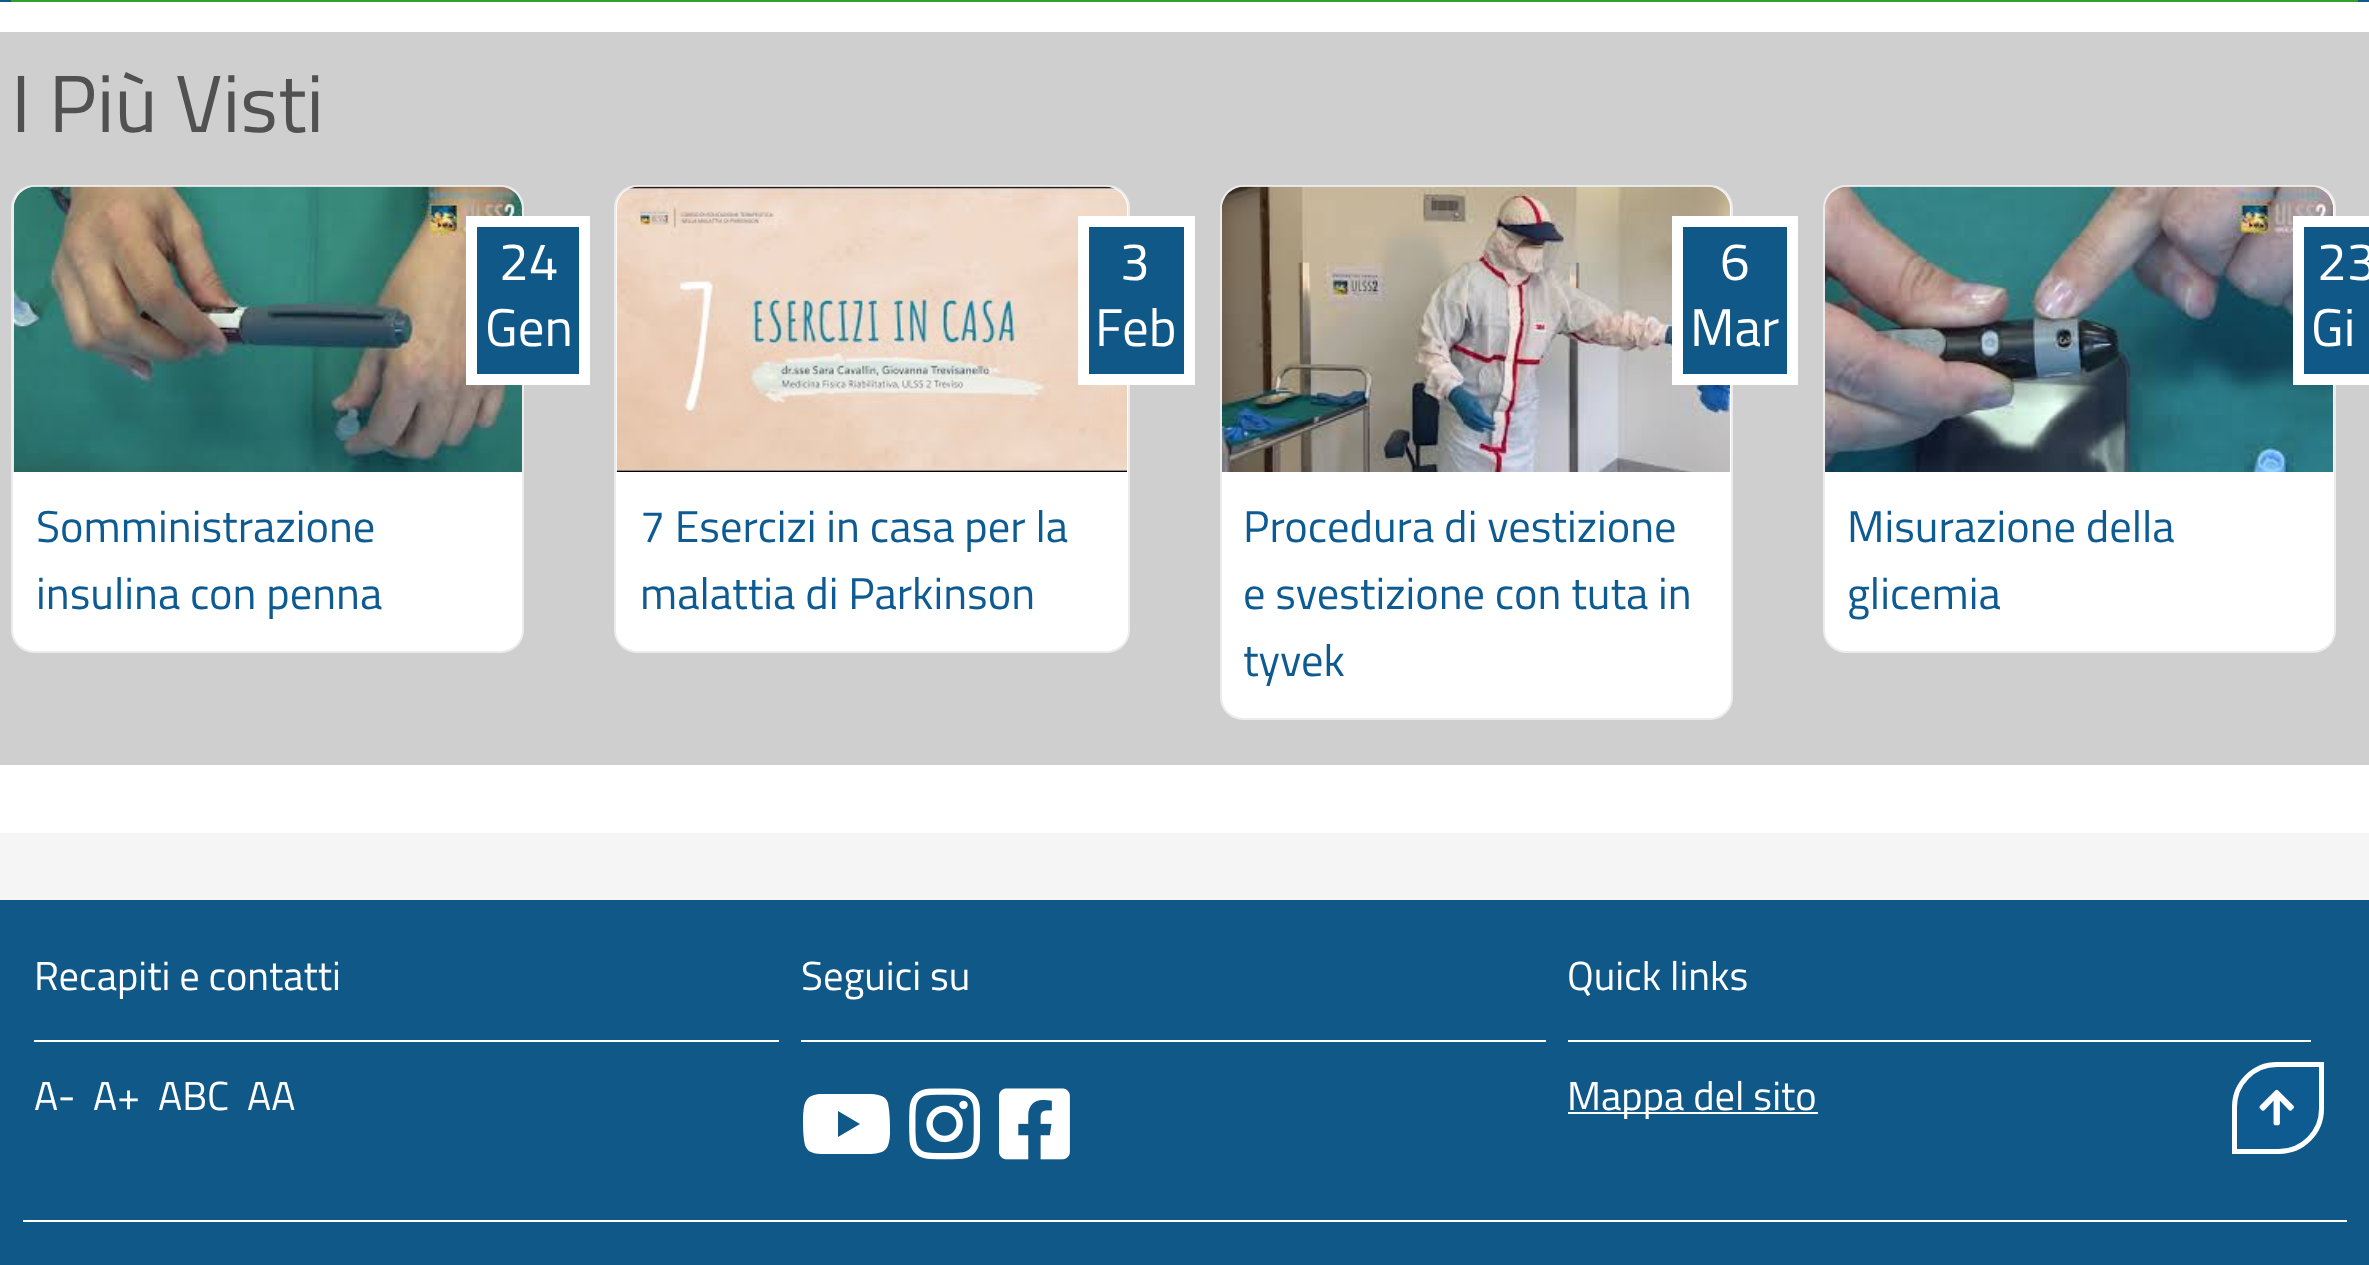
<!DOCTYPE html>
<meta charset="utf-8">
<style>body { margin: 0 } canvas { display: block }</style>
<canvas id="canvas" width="2369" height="1265"></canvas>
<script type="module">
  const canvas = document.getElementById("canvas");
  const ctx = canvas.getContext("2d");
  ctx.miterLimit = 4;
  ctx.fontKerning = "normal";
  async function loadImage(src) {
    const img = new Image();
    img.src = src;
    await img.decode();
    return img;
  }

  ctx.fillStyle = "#ffffff";
  ctx.fillRect(0, 0, 2369, 1265);
  ctx.fillStyle = "#0f5887";
  ctx.fillRect(0, 0, 2369, 2);
  ctx.fillStyle = "#33a02d";
  ctx.fillRect(11, 0, 2347, 2);
  ctx.fillStyle = "#cfcfcf";
  ctx.fillRect(0, 32, 2369, 733);
  ctx.font = "81px Titillium Web";
  ctx.fillStyle = "#515151";
  ctx.fillText("I Più Visti", 11, 132);
  ctx.fillStyle = "#ffffff";
  ctx.beginPath();
  ctx.roundRect(12, 186, 511, 466, 22);
  ctx.fill();
  ctx.strokeStyle = "#ececec";
  ctx.lineWidth = 2;
  ctx.stroke();
  ctx.drawImage(await loadImage("img1.png"), 13, 186, 509, 286);
  ctx.fillStyle = "#0f5887";
  ctx.beginPath();
  ctx.rect(471.5, 221.5, 113, 158);
  ctx.fill();
  ctx.strokeStyle = "#ffffff";
  ctx.lineWidth = 11;
  ctx.stroke();
  ctx.font = "53px Titillium Web";
  ctx.fillStyle = "#ffffff";
  ctx.fillText("24", 499, 280);
  ctx.fillText("Gen", 485, 346);
  ctx.font = "44.5px Titillium Web";
  ctx.fillStyle = "#0e5b92";
  ctx.fillText("Somministrazione", 36, 542);
  ctx.fillText("insulina con penna", 36, 609);
  ctx.fillStyle = "#ffffff";
  ctx.beginPath();
  ctx.roundRect(615, 186, 514, 466, 22);
  ctx.fill();
  ctx.strokeStyle = "#ececec";
  ctx.lineWidth = 2;
  ctx.stroke();
  ctx.drawImage(await loadImage("img2.png"), 616, 186, 511, 286);
  ctx.fillStyle = "#0f5887";
  ctx.beginPath();
  ctx.rect(1083.5, 221.5, 106, 158);
  ctx.fill();
  ctx.strokeStyle = "#ffffff";
  ctx.lineWidth = 11;
  ctx.stroke();
  ctx.font = "53px Titillium Web";
  ctx.fillStyle = "#ffffff";
  ctx.fillText("3", 1120, 280);
  ctx.fillText("Feb", 1095, 346);
  ctx.font = "44.5px Titillium Web";
  ctx.fillStyle = "#0e5b92";
  ctx.fillText("7 Esercizi in casa per la", 640, 542);
  ctx.fillText("malattia di Parkinson", 640, 609);
  ctx.fillStyle = "#ffffff";
  ctx.beginPath();
  ctx.roundRect(1221, 186, 511, 533, 22);
  ctx.fill();
  ctx.strokeStyle = "#ececec";
  ctx.lineWidth = 2;
  ctx.stroke();
  ctx.drawImage(await loadImage("img3.png"), 1222, 186, 508, 286);
  ctx.fillStyle = "#0f5887";
  ctx.beginPath();
  ctx.rect(1677.5, 221.5, 115, 158);
  ctx.fill();
  ctx.strokeStyle = "#ffffff";
  ctx.lineWidth = 11;
  ctx.stroke();
  ctx.font = "53px Titillium Web";
  ctx.fillStyle = "#ffffff";
  ctx.fillText("6", 1720, 280);
  ctx.fillText("Mar", 1690, 346);
  ctx.font = "44.5px Titillium Web";
  ctx.fillStyle = "#0e5b92";
  ctx.fillText("Procedura di vestizione", 1243, 542);
  ctx.fillText("e svestizione con tuta in", 1243, 609);
  ctx.fillText("tyvek", 1243, 676);
  ctx.fillStyle = "#ffffff";
  ctx.beginPath();
  ctx.roundRect(1824, 186, 511, 466, 22);
  ctx.fill();
  ctx.strokeStyle = "#ececec";
  ctx.lineWidth = 2;
  ctx.stroke();
  ctx.drawImage(await loadImage("img4.png"), 1825, 186, 508, 286);
  ctx.fillStyle = "#0f5887";
  ctx.beginPath();
  ctx.rect(2298.5, 221.5, 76, 158);
  ctx.fill();
  ctx.strokeStyle = "#ffffff";
  ctx.lineWidth = 11;
  ctx.stroke();
  ctx.font = "53px Titillium Web";
  ctx.fillStyle = "#ffffff";
  ctx.fillText("23", 2317, 280);
  ctx.fillText("Gi", 2311, 346);
  ctx.font = "44.5px Titillium Web";
  ctx.fillStyle = "#0e5b92";
  ctx.fillText("Misurazione della", 1847, 542);
  ctx.fillText("glicemia", 1847, 609);
  ctx.fillStyle = "#0f5887";
  ctx.fillRect(0, 900, 2369, 365);
  ctx.fillStyle = "#f5f5f5";
  ctx.fillRect(0, 833, 2369, 67);
  ctx.fillStyle = "#ffffff";
  ctx.fillRect(34, 1040, 745, 2);
  ctx.font = "40.5px Titillium Web";
  ctx.fillText("Recapiti e contatti", 34, 990);
  ctx.fillText("A-", 34, 1110);
  ctx.fillText("A+", 93, 1110);
  ctx.fillText("ABC", 158, 1110);
  ctx.fillText("AA", 247, 1110);
  ctx.fillRect(801, 1040, 745, 2);
  ctx.fillText("Seguici su", 801, 990);
  ctx.beginPath();
  ctx.moveTo(888, 1103);
  ctx.bezierCurveTo(890, 1113, 890, 1124, 890, 1134);
  ctx.bezierCurveTo(889, 1149, 886, 1153, 871, 1154);
  ctx.lineTo(850, 1154);
  ctx.lineTo(825, 1154);
  ctx.bezierCurveTo(820, 1154, 815, 1154, 811, 1152);
  ctx.bezierCurveTo(808, 1151, 806, 1148, 805, 1145);
  ctx.bezierCurveTo(803, 1137, 803, 1125, 803, 1117);
  ctx.bezierCurveTo(804, 1104, 804, 1096, 819, 1094);
  ctx.lineTo(838, 1094);
  ctx.lineTo(864, 1094);
  ctx.bezierCurveTo(872, 1094, 885, 1093, 888, 1103);
  ctx.closePath();
  ctx.moveTo(838, 1137);
  ctx.lineTo(860, 1124);
  ctx.lineTo(838, 1111);
  ctx.closePath();
  ctx.fill();
  ctx.drawImage(await loadImage("img5.png"), 909, 1088, 72, 72);
  ctx.drawImage(await loadImage("img6.png"), 999, 1088, 71, 72);
  ctx.fillRect(1568, 1040, 743, 2);
  ctx.fillText("Quick links", 1567, 990);
  ctx.fillRect(1568, 1112, 250, 2);
  ctx.fillText("Mappa del sito", 1567, 1110);
  ctx.fillRect(23, 1220, 2324, 2);
  ctx.fillStyle = "#0e5b92";
  ctx.beginPath();
  ctx.roundRect(2234.5, 1064.5, 87, 87, [42.5, 0, 42.5, 0]);
  ctx.fill();
  ctx.lineWidth = 5;
  ctx.stroke();
  ctx.drawImage(await loadImage("img7.png"), 2259, 1089, 35, 37);
</script>
